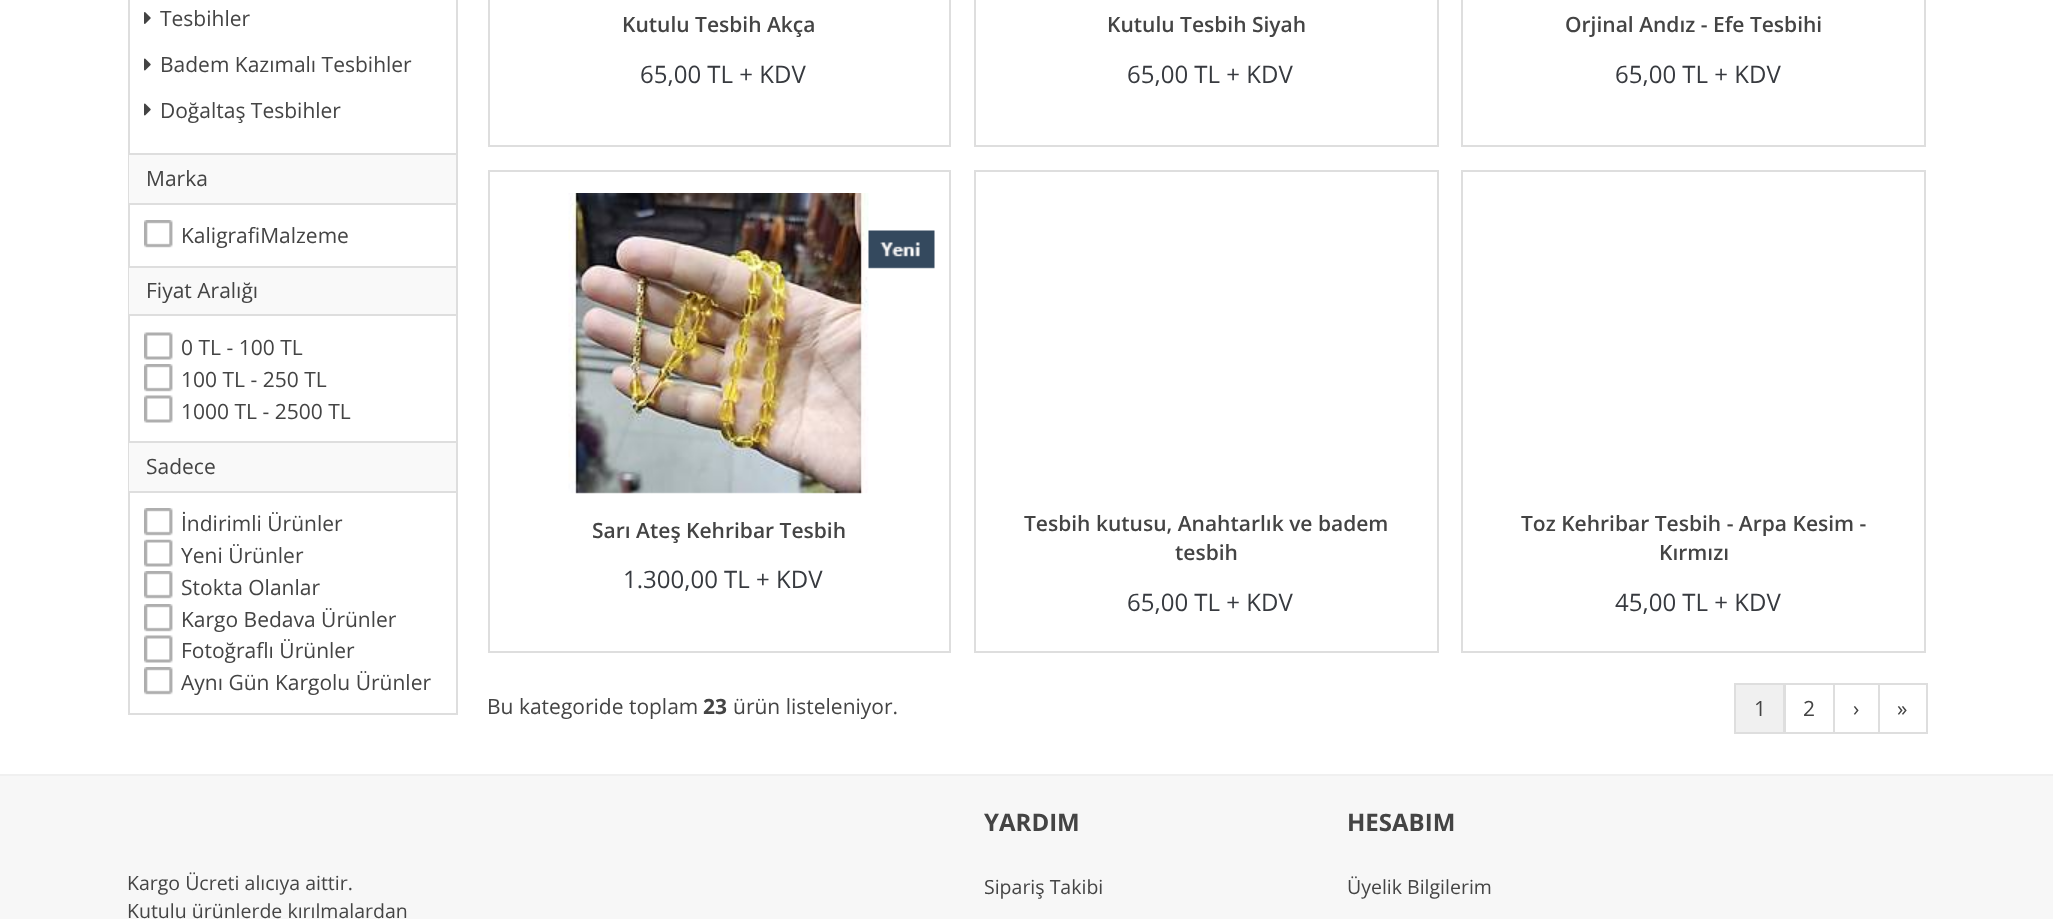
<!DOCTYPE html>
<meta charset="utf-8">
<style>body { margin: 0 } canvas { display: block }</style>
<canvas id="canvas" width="2053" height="919"></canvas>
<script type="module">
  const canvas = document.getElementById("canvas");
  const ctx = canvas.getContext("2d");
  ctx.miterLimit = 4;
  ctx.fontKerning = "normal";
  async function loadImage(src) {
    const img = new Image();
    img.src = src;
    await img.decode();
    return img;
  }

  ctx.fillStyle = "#ffffff";
  ctx.fillRect(0, 0, 2053, 919);
  ctx.fillStyle = "#dedede";
  ctx.fillRect(456, 0, 2, 714);
  ctx.fillRect(128, 713, 330, 2);
  ctx.fillRect(128, 0, 2, 714);
  ctx.drawImage(await loadImage("img1.png"), 144, 12, 7, 12);
  ctx.font = "21px Open Sans";
  ctx.fillStyle = "#444444";
  ctx.fillText("Tesbihler", 160, 26);
  ctx.drawImage(await loadImage("img2.png"), 144, 58, 7, 13);
  ctx.fillText("Badem Kazımalı Tesbihler", 160, 72);
  ctx.drawImage(await loadImage("img2.png"), 144, 103, 7, 13);
  ctx.fillText("Doğaltaş Tesbihler", 160, 118);
  ctx.fillStyle = "#f9f9f9";
  ctx.fillRect(129, 155, 327, 48);
  ctx.fillStyle = "#dedede";
  ctx.fillRect(129, 153, 327, 2);
  ctx.fillRect(129, 203, 327, 2);
  ctx.fillStyle = "#444444";
  ctx.fillText("Marka", 146, 186);
  ctx.drawImage(await loadImage("img3.png"), 144, 220, 29, 28);
  ctx.fillText("KaligrafiMalzeme", 181, 243);
  ctx.fillStyle = "#f9f9f9";
  ctx.fillRect(129, 268, 327, 46);
  ctx.fillStyle = "#dedede";
  ctx.fillRect(129, 266, 327, 2);
  ctx.fillRect(129, 314, 327, 2);
  ctx.fillStyle = "#444444";
  ctx.fillText("Fiyat Aralığı", 146, 298);
  ctx.drawImage(await loadImage("img4.png"), 144, 332, 29, 28);
  ctx.fillText("0 TL - 100 TL", 181, 355);
  ctx.drawImage(await loadImage("img3.png"), 144, 364, 29, 28);
  ctx.fillText("100 TL - 250 TL", 181, 387);
  ctx.drawImage(await loadImage("img4.png"), 144, 395, 29, 28);
  ctx.fillText("1000 TL - 2500 TL", 181, 419);
  ctx.fillStyle = "#f9f9f9";
  ctx.fillRect(129, 443, 327, 48);
  ctx.fillStyle = "#dedede";
  ctx.fillRect(129, 441, 327, 2);
  ctx.fillRect(129, 491, 327, 2);
  ctx.fillStyle = "#444444";
  ctx.fillText("Sadece", 146, 474);
  ctx.drawImage(await loadImage("img3.png"), 144, 508, 29, 28);
  ctx.fillText("İndirimli Ürünler", 181, 531);
  ctx.drawImage(await loadImage("img5.png"), 144, 539, 29, 28);
  ctx.fillText("Yeni Ürünler", 181, 563);
  ctx.drawImage(await loadImage("img3.png"), 144, 571, 29, 28);
  ctx.fillText("Stokta Olanlar", 181, 595);
  ctx.drawImage(await loadImage("img3.png"), 144, 604, 29, 28);
  ctx.fillText("Kargo Bedava Ürünler", 181, 627);
  ctx.drawImage(await loadImage("img4.png"), 144, 635, 29, 28);
  ctx.fillText("Fotoğraflı Ürünler", 181, 658);
  ctx.drawImage(await loadImage("img3.png"), 144, 667, 29, 28);
  ctx.fillText("Aynı Gün Kargolu Ürünler", 181, 690);
  ctx.strokeStyle = "#dedede";
  ctx.lineWidth = 2;
  ctx.strokeRect(489, -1, 461, 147);
  ctx.font = "600 21px Open Sans";
  ctx.fillText("Kutulu Tesbih Akça", 622, 32);
  ctx.font = "24px Open Sans";
  ctx.fillStyle = "#373a3f";
  ctx.fillText("65,00 TL + KDV", 640, 83);
  ctx.strokeRect(975, -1, 463, 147);
  ctx.font = "600 21px Open Sans";
  ctx.fillStyle = "#444444";
  ctx.fillText("Kutulu Tesbih Siyah", 1107, 32);
  ctx.font = "24px Open Sans";
  ctx.fillStyle = "#373a3f";
  ctx.fillText("65,00 TL + KDV", 1127, 83);
  ctx.strokeRect(1462, -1, 463, 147);
  ctx.font = "600 21px Open Sans";
  ctx.fillStyle = "#444444";
  ctx.fillText("Orjinal Andız - Efe Tesbihi", 1565, 32);
  ctx.font = "24px Open Sans";
  ctx.fillStyle = "#373a3f";
  ctx.fillText("65,00 TL + KDV", 1615, 83);
  ctx.strokeRect(489, 171, 461, 481);
  ctx.drawImage(await loadImage("img6.png"), 568, 193, 301, 301);
  ctx.drawImage(await loadImage("img7.png"), 868, 230, 67, 39);
  ctx.font = "600 21px Open Sans";
  ctx.fillStyle = "#444444";
  ctx.fillText("Sarı Ateş Kehribar Tesbih", 592, 538);
  ctx.font = "24px Open Sans";
  ctx.fillStyle = "#373a3f";
  ctx.fillText("1.300,00 TL + KDV", 623, 588);
  ctx.strokeRect(975, 171, 463, 481);
  ctx.font = "600 21px Open Sans";
  ctx.fillStyle = "#444444";
  ctx.fillText("Tesbih kutusu, Anahtarlık ve badem", 1024, 531);
  ctx.fillText("tesbih", 1175, 560);
  ctx.font = "24px Open Sans";
  ctx.fillStyle = "#373a3f";
  ctx.fillText("65,00 TL + KDV", 1127, 611);
  ctx.strokeRect(1462, 171, 463, 481);
  ctx.font = "600 21px Open Sans";
  ctx.fillStyle = "#444444";
  ctx.fillText("Toz Kehribar Tesbih - Arpa Kesim -", 1521, 531);
  ctx.fillText("Kırmızı", 1659, 560);
  ctx.font = "24px Open Sans";
  ctx.fillStyle = "#373a3f";
  ctx.fillText("45,00 TL + KDV", 1615, 611);
  ctx.font = "21px Open Sans";
  ctx.fillStyle = "#444444";
  ctx.fillText("Bu kategoride toplam", 487, 714);
  ctx.font = "bold 21px Open Sans";
  ctx.fillText("23", 703, 714);
  ctx.font = "21px Open Sans";
  ctx.fillText("ürün listeleniyor.", 733, 714);
  ctx.fillStyle = "#f0f0f0";
  ctx.beginPath();
  ctx.rect(1735, 684, 49, 49);
  ctx.fill();
  ctx.stroke();
  ctx.fillStyle = "#444444";
  ctx.fillText("1", 1754, 716);
  ctx.strokeRect(1785, 684, 49, 49);
  ctx.fillText("2", 1803, 716);
  ctx.strokeRect(1834, 684, 45, 49);
  ctx.fillText("›", 1853, 716);
  ctx.strokeRect(1879, 684, 48, 49);
  ctx.fillText("»", 1897, 716);
  ctx.fillStyle = "#f7f7f7";
  ctx.fillRect(0, 776, 2053, 143);
  ctx.fillStyle = "#f0f0f0";
  ctx.fillRect(0, 774, 2053, 2);
  ctx.font = "19.5px Open Sans";
  ctx.fillStyle = "#444444";
  ctx.fillText("Kargo Ücreti alıcıya aittir.", 127, 890);
  ctx.fillText("Kutulu ürünlerde kırılmalardan", 127, 918);
  ctx.font = "bold 24px Open Sans";
  ctx.fillText("YARDIM", 984, 831);
  ctx.font = "19.5px Open Sans";
  ctx.fillText("Sipariş Takibi", 984, 894);
  ctx.font = "bold 24px Open Sans";
  ctx.fillText("HESABIM", 1347, 831);
  ctx.font = "19.5px Open Sans";
  ctx.fillText("Üyelik Bilgilerim", 1347, 894);
</script>
